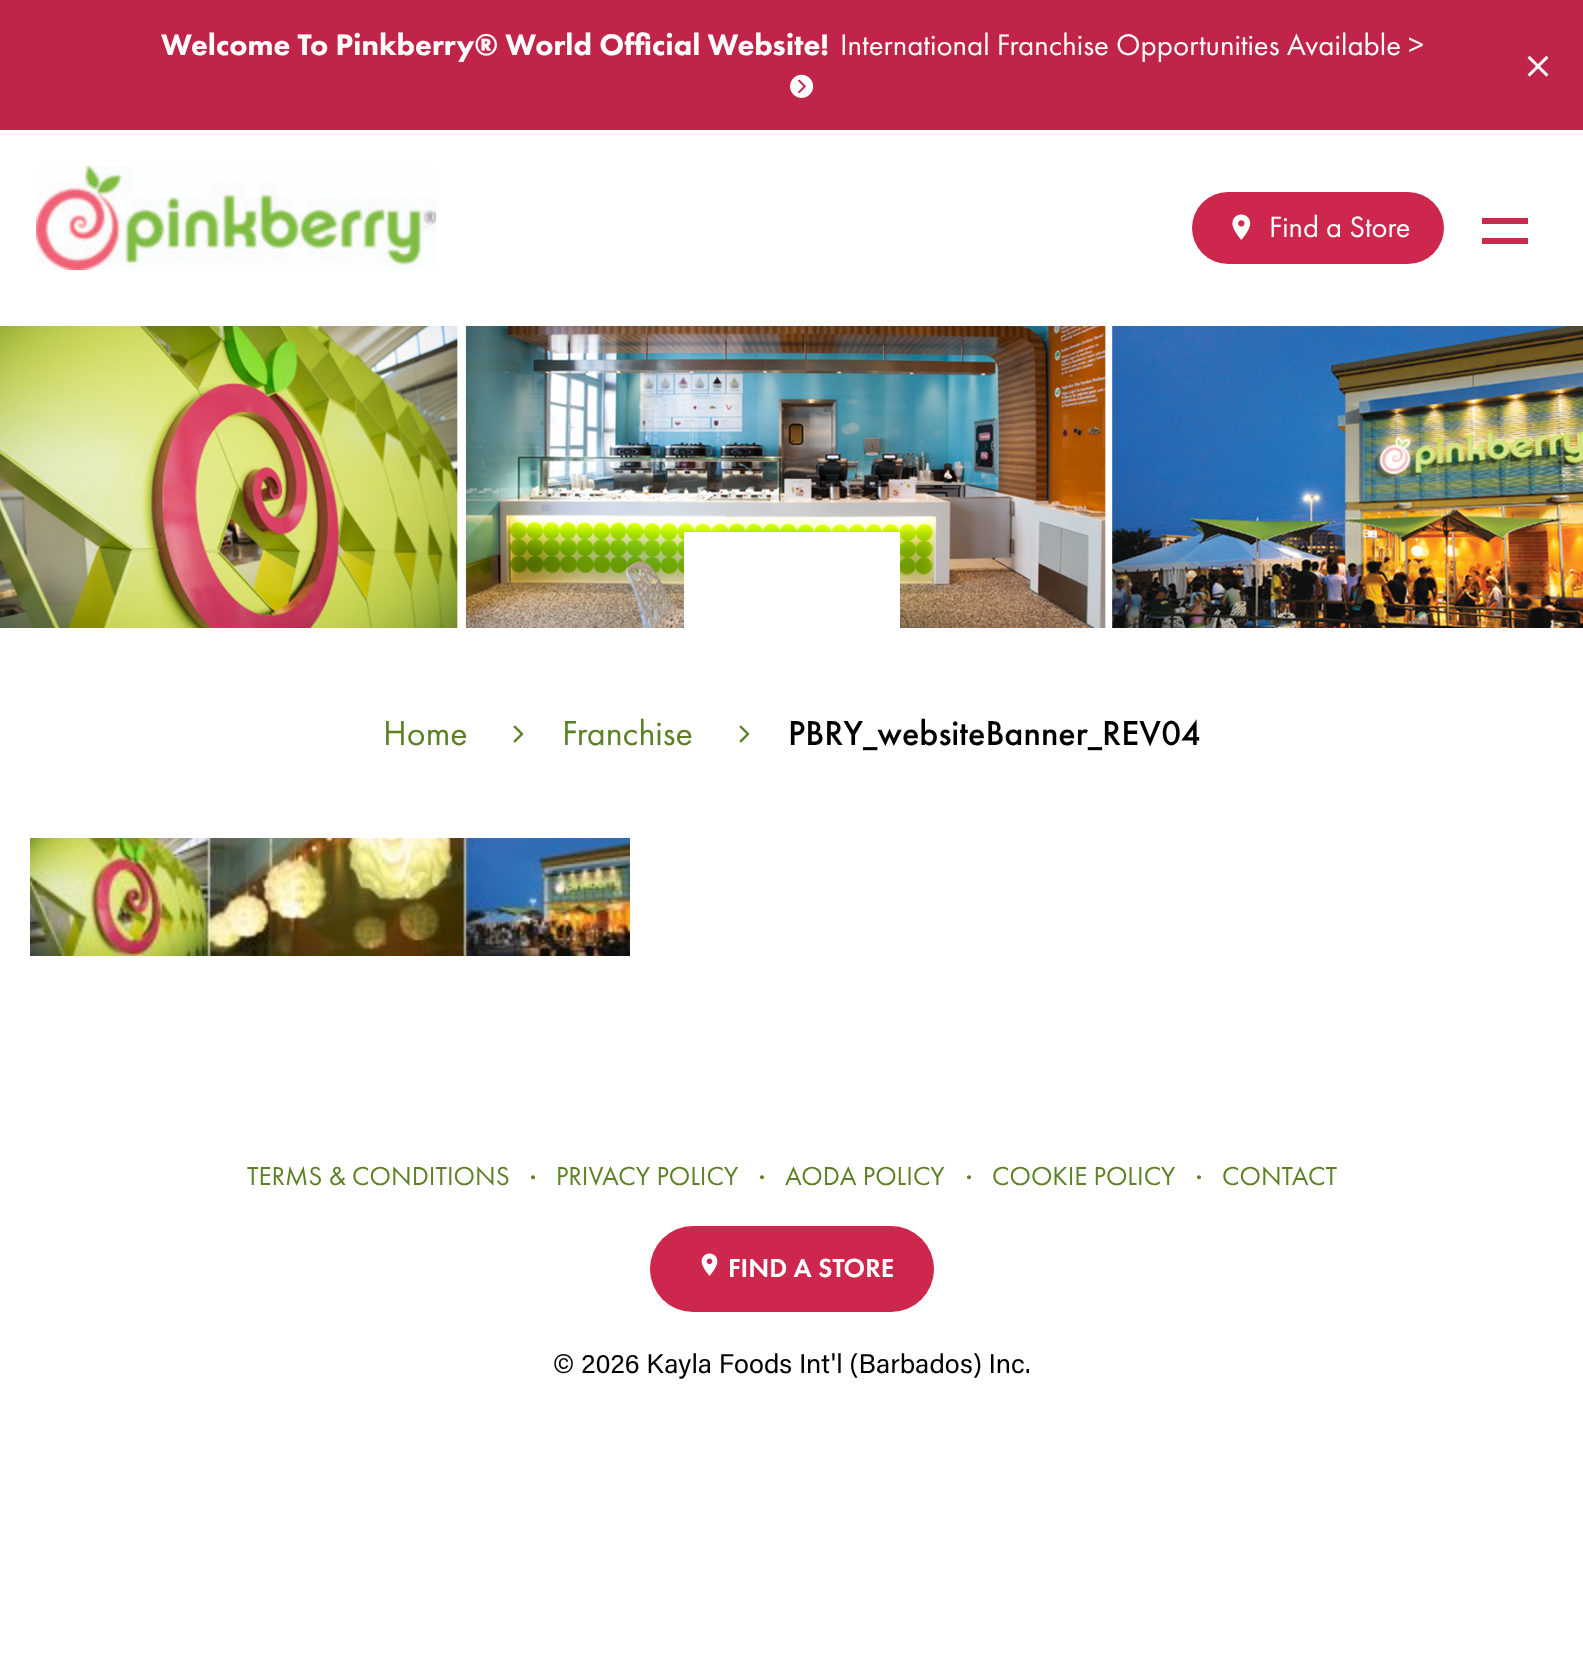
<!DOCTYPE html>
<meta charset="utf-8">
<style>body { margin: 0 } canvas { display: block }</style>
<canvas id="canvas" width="1583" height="1676"></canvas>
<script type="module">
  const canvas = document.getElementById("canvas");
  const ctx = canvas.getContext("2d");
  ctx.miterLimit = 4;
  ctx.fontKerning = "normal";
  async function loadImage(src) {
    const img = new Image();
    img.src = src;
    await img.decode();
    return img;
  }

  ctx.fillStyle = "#ffffff";
  ctx.fillRect(0, 0, 1583, 1676);
  ctx.fillStyle = "#c02549";
  ctx.fillRect(0, 0, 1583, 130);
  ctx.font = "900 30.85px Futura PT";
  ctx.fillStyle = "#ffffff";
  ctx.fillText("Welcome To Pinkberry® World Official Website!", 161, 55);
  ctx.font = "30.85px Futura PT";
  ctx.fillText("International Franchise Opportunities Available >", 840, 55);
  ctx.drawImage(await loadImage("img1.png"), 790, 74, 24, 24);
  ctx.drawImage(await loadImage("img2.png"), 1527, 55, 22, 22);
  ctx.drawImage(await loadImage("img3.png"), 36, 166, 400, 104);
  ctx.fillStyle = "#cd274e";
  ctx.beginPath();
  ctx.roundRect(1192, 192, 252, 72, 36);
  ctx.fill();
  ctx.drawImage(await loadImage("img4.png"), 1232, 214, 19, 26);
  ctx.font = "30.5px Futura PT";
  ctx.fillStyle = "#ffffff";
  ctx.fillText("Find a Store", 1269, 237);
  ctx.fillStyle = "#cd274e";
  ctx.fillRect(1482, 218, 46, 6);
  ctx.fillRect(1482, 238, 46, 6);
  ctx.drawImage(await loadImage("img5.png"), 0, 326, 1583, 302);
  ctx.fillStyle = "#ffffff";
  ctx.fillRect(684, 532, 216, 96);
  ctx.font = "36px Futura PT";
  ctx.fillStyle = "#5c8124";
  ctx.fillText("Home", 383, 745);
  ctx.drawImage(await loadImage("img6.png"), 513, 725, 11, 18);
  ctx.fillText("Franchise", 562, 745);
  ctx.drawImage(await loadImage("img6.png"), 739, 725, 11, 18);
  ctx.font = "500 36px Futura PT";
  ctx.fillStyle = "#000000";
  ctx.fillText("PBRY_websiteBanner_REV04", 788, 745);
  ctx.drawImage(await loadImage("img7.png"), 30, 838, 600, 118);
  ctx.font = "27px Futura PT";
  ctx.fillStyle = "#5c8124";
  ctx.fillText("TERMS & CONDITIONS", 247, 1185);
  ctx.font = "14px Futura PT";
  ctx.fillText("•", 526, 1182);
  ctx.font = "27px Futura PT";
  ctx.fillText("PRIVACY POLICY", 556, 1185);
  ctx.font = "14px Futura PT";
  ctx.fillText("•", 755, 1182);
  ctx.font = "27px Futura PT";
  ctx.fillText("AODA POLICY", 785, 1185);
  ctx.font = "14px Futura PT";
  ctx.fillText("•", 962, 1182);
  ctx.font = "27px Futura PT";
  ctx.fillText("COOKIE POLICY", 992, 1185);
  ctx.font = "14px Futura PT";
  ctx.fillText("•", 1192, 1182);
  ctx.font = "27px Futura PT";
  ctx.fillText("CONTACT", 1222, 1185);
  ctx.fillStyle = "#cd274e";
  ctx.beginPath();
  ctx.roundRect(650, 1226, 284, 86, 43);
  ctx.fill();
  ctx.drawImage(await loadImage("img8.png"), 701, 1253, 17, 23);
  ctx.font = "500 27px 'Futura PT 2'";
  ctx.fillStyle = "#ffffff";
  ctx.fillText("FIND A STORE", 728, 1277);
  ctx.font = "27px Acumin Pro";
  ctx.fillStyle = "#000000";
  ctx.fillText("© 2026 Kayla Foods Int'l (Barbados) Inc.", 553, 1373);
</script>
